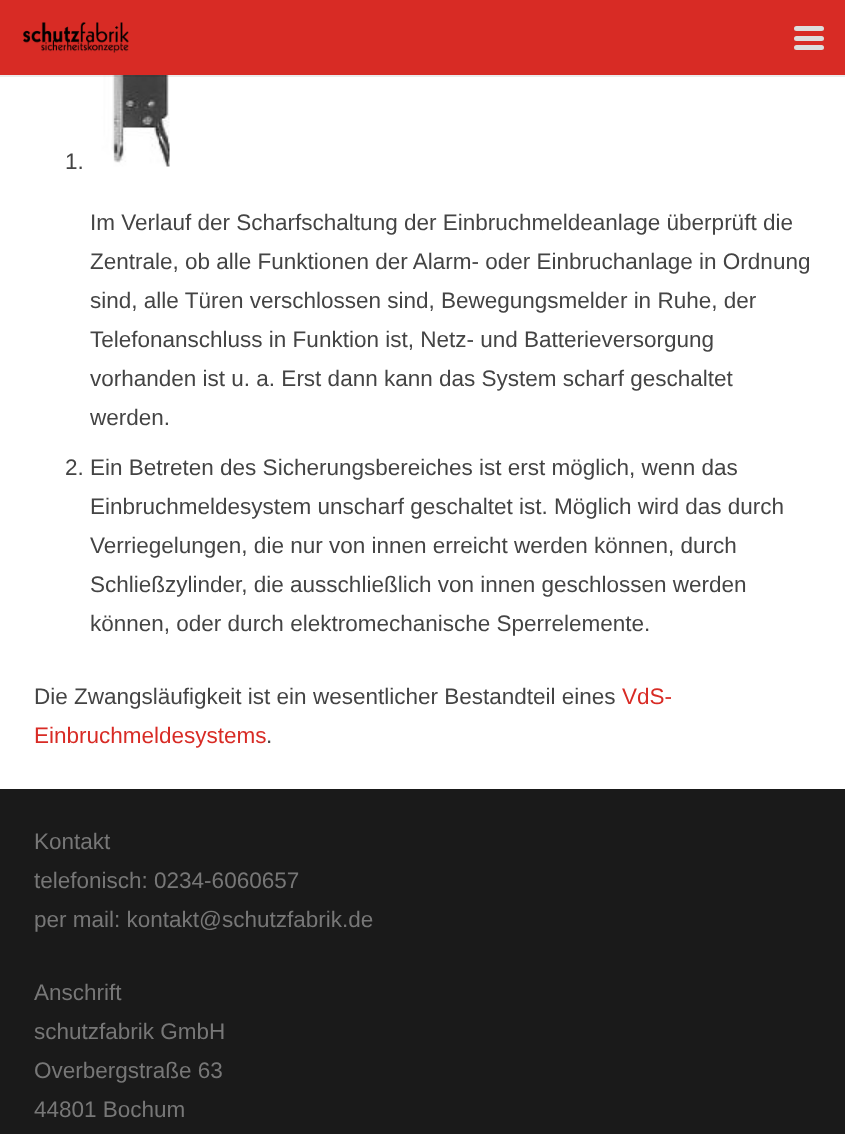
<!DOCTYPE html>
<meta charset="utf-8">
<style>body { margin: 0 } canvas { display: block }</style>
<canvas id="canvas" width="845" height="1134"></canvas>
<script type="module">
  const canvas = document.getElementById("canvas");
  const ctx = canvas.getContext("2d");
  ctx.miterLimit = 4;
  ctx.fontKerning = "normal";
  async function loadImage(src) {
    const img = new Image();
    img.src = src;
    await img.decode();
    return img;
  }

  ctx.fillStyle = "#ffffff";
  ctx.fillRect(0, 0, 845, 1134);
  ctx.drawImage(await loadImage("img2.png"), 90, 75, 80, 92);
  ctx.fillStyle = "rgba(0, 0, 0, 0.08)";
  ctx.fillRect(0, 75, 845, 2);
  ctx.fillStyle = "#d82b25";
  ctx.fillRect(0, 0, 845, 75);
  ctx.drawImage(await loadImage("img1.png"), 23, 22, 106, 31);
  ctx.fillStyle = "#dddddd";
  ctx.beginPath();
  ctx.roundRect(794, 36, 30, 5, 2.5);
  ctx.fill();
  ctx.beginPath();
  ctx.roundRect(794, 26, 30, 5, 2.5);
  ctx.fill();
  ctx.beginPath();
  ctx.roundRect(794, 45, 30, 5, 2.5);
  ctx.fill();
  ctx.font = "22.5px Liberation Sans";
  ctx.fillStyle = "#444444";
  ctx.fillText("1.", 65, 169);
  ctx.fillText("Im Verlauf der Scharfschaltung der Einbruchmeldeanlage überprüft die", 90, 230);
  ctx.fillText("Zentrale, ob alle Funktionen der Alarm- oder Einbruchanlage in Ordnung", 90, 269);
  ctx.fillText("sind, alle Türen verschlossen sind, Bewegungsmelder in Ruhe, der", 90, 308);
  ctx.fillText("Telefonanschluss in Funktion ist, Netz- und Batterieversorgung", 90, 347);
  ctx.fillText("vorhanden ist u. a. Erst dann kann das System scharf geschaltet", 90, 386);
  ctx.fillText("werden.", 90, 425);
  ctx.fillText("2. Ein Betreten des Sicherungsbereiches ist erst möglich, wenn das", 65, 475);
  ctx.fillText("Einbruchmeldesystem unscharf geschaltet ist. Möglich wird das durch", 90, 514);
  ctx.fillText("Verriegelungen, die nur von innen erreicht werden können, durch", 90, 553);
  ctx.fillText("Schließzylinder, die ausschließlich von innen geschlossen werden", 90, 592);
  ctx.fillText("können, oder durch elektromechanische Sperrelemente.", 90, 631);
  ctx.fillText("Die Zwangsläufigkeit ist ein wesentlicher Bestandteil eines", 34, 704);
  ctx.fillStyle = "#d82b25";
  ctx.fillText("VdS-", 622, 704);
  ctx.fillText("Einbruchmeldesystems", 34, 743);
  ctx.fillStyle = "#444444";
  ctx.fillText(".", 266, 743);
  ctx.fillStyle = "#1a1a1a";
  ctx.fillRect(0, 789, 845, 345);
  ctx.fillStyle = "#777777";
  ctx.fillText("Kontakt", 34, 849);
  ctx.fillText("telefonisch: 0234-6060657", 34, 888);
  ctx.fillText("per mail: kontakt@schutzfabrik.de", 34, 927);
  ctx.fillText("Anschrift", 34, 1000);
  ctx.fillText("schutzfabrik GmbH", 34, 1039);
  ctx.fillText("Overbergstraße 63", 34, 1078);
  ctx.fillText("44801 Bochum", 34, 1117);
</script>
